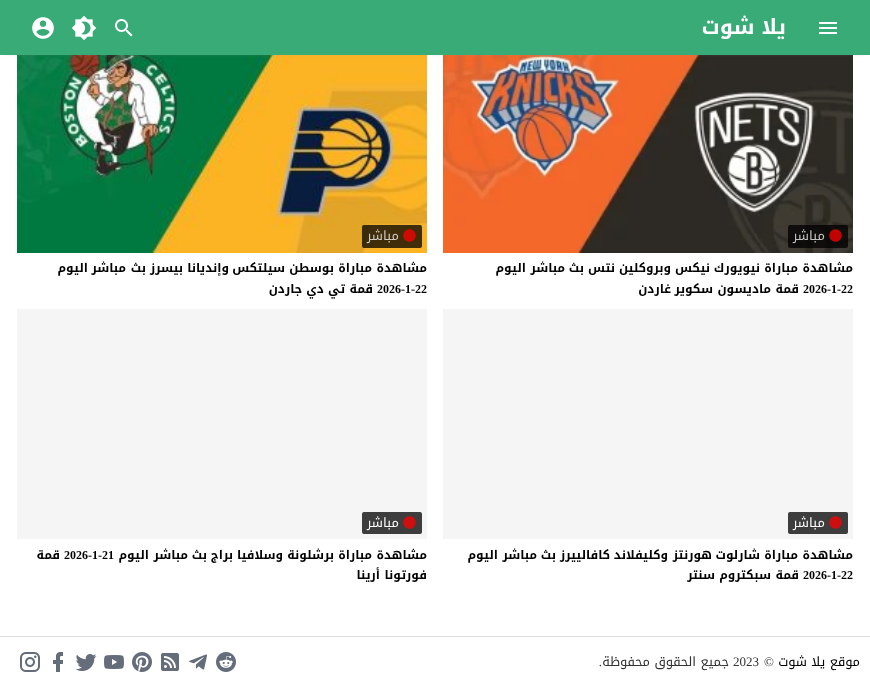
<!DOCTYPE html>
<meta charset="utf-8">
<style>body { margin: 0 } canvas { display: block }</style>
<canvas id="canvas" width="870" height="687"></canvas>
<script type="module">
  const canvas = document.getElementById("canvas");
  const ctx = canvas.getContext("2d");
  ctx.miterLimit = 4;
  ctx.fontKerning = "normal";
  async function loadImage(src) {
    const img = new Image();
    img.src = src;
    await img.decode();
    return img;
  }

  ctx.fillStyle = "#ffffff";
  ctx.fillRect(0, 0, 870, 687);
  ctx.drawImage(await loadImage("img5.png"), 443, 55, 410, 198);
  ctx.drawImage(await loadImage("img7.png"), 17, 55, 410, 198);
  ctx.fillStyle = "#999999";
  ctx.filter = "blur(2.5px)";
  ctx.beginPath();
  ctx.rect(5, 7, 860, 45);
  ctx.fill();
  ctx.filter = "none";
  ctx.fillStyle = "#38ab77";
  ctx.fillRect(0, 0, 870, 55);
  ctx.drawImage(await loadImage("img1.png"), 819, 22, 18, 12);
  ctx.direction = "rtl";
  ctx.font = "bold 21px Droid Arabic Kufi";
  ctx.fillStyle = "#fdfdfd";
  ctx.fillText("يلا شوت", 786, 34);
  ctx.drawImage(await loadImage("img2.png"), 115, 19, 18, 18);
  ctx.drawImage(await loadImage("img3.png"), 71, 15, 26, 26);
  ctx.drawImage(await loadImage("img4.png"), 32, 17, 22, 22);
  ctx.fillStyle = "rgba(0, 0, 0, 0.75)";
  ctx.beginPath();
  ctx.roundRect(788, 225, 60, 23, 2);
  ctx.fill();
  ctx.drawImage(await loadImage("img6.png"), 829, 229, 13, 13);
  ctx.font = "13px Droid Arabic Kufi";
  ctx.fillStyle = "#c3c3c2";
  ctx.fillText("مباشر", 825, 240);
  ctx.font = "bold 12px Droid Arabic Kufi";
  ctx.fillStyle = "#000000";
  ctx.fillText("مشاهدة", 853, 272);
  ctx.fillText("مباراة", 798, 272);
  ctx.fillText("نيويورك", 760, 272);
  ctx.fillText("نيكس", 710, 272);
  ctx.fillText("وبروكلين", 671, 272);
  ctx.fillText("نتس", 615, 272);
  ctx.fillText("بث", 584, 272);
  ctx.fillText("مباشر", 565, 272);
  ctx.fillText("اليوم", 526, 272);
  ctx.direction = "ltr";
  ctx.font = "bold 12px Liberation Serif";
  ctx.fillText("2026-1-22", 803, 293);
  ctx.direction = "rtl";
  ctx.font = "bold 12px Droid Arabic Kufi";
  ctx.fillText("قمة", 799, 293);
  ctx.fillText("ماديسون", 771, 293);
  ctx.fillText("سكوير", 713, 293);
  ctx.fillText("غاردن", 671, 293);
  ctx.fillStyle = "rgba(0, 0, 0, 0.75)";
  ctx.beginPath();
  ctx.roundRect(362, 225, 60, 23, 2);
  ctx.fill();
  ctx.drawImage(await loadImage("img8.png"), 403, 229, 13, 13);
  ctx.font = "13px Droid Arabic Kufi";
  ctx.fillStyle = "#cfcac2";
  ctx.fillText("مباشر", 399, 240);
  ctx.font = "bold 12px Droid Arabic Kufi";
  ctx.fillStyle = "#000000";
  ctx.fillText("مشاهدة", 427, 272);
  ctx.fillText("مباراة", 372, 272);
  ctx.fillText("بوسطن", 334, 272);
  ctx.fillText("سيلتكس", 285, 272);
  ctx.fillText("وإنديانا", 229, 272);
  ctx.fillText("بيسرز", 183, 272);
  ctx.fillText("بث", 146, 272);
  ctx.fillText("مباشر", 126, 272);
  ctx.fillText("اليوم", 88, 272);
  ctx.direction = "ltr";
  ctx.font = "bold 12px Liberation Serif";
  ctx.fillText("2026-1-22", 377, 293);
  ctx.direction = "rtl";
  ctx.font = "bold 12px Droid Arabic Kufi";
  ctx.fillText("قمة", 373, 293);
  ctx.fillText("تي", 345, 293);
  ctx.fillText("دي", 324, 293);
  ctx.fillText("جاردن", 302, 293);
  ctx.fillStyle = "#f5f5f5";
  ctx.fillRect(443, 309, 410, 230);
  ctx.fillStyle = "#3d3d3d";
  ctx.beginPath();
  ctx.roundRect(788, 512, 60, 22, 2);
  ctx.fill();
  ctx.drawImage(await loadImage("img9.png"), 829, 516, 13, 13);
  ctx.font = "13px Droid Arabic Kufi";
  ctx.fillStyle = "#fdfdfd";
  ctx.fillText("مباشر", 825, 527);
  ctx.font = "bold 12px Droid Arabic Kufi";
  ctx.fillStyle = "#000000";
  ctx.fillText("مشاهدة", 853, 559);
  ctx.fillText("مباراة", 798, 559);
  ctx.fillText("شارلوت", 760, 559);
  ctx.fillText("هورنتز", 712, 559);
  ctx.fillText("وكليفلاند", 668, 559);
  ctx.fillText("كافالييرز", 610, 559);
  ctx.fillText("بث", 556, 559);
  ctx.fillText("مباشر", 537, 559);
  ctx.fillText("اليوم", 498, 559);
  ctx.direction = "ltr";
  ctx.font = "bold 12px Liberation Serif";
  ctx.fillText("2026-1-22", 803, 579);
  ctx.direction = "rtl";
  ctx.font = "bold 12px Droid Arabic Kufi";
  ctx.fillText("قمة", 799, 579);
  ctx.fillText("سبكتروم", 771, 579);
  ctx.fillText("سنتر", 715, 579);
  ctx.fillStyle = "#f5f5f5";
  ctx.fillRect(17, 309, 410, 230);
  ctx.fillStyle = "#3d3d3d";
  ctx.beginPath();
  ctx.roundRect(362, 512, 60, 22, 2);
  ctx.fill();
  ctx.drawImage(await loadImage("img9.png"), 403, 516, 13, 13);
  ctx.font = "13px Droid Arabic Kufi";
  ctx.fillStyle = "#fdfdfd";
  ctx.fillText("مباشر", 399, 527);
  ctx.font = "bold 12px Droid Arabic Kufi";
  ctx.fillStyle = "#000000";
  ctx.fillText("مشاهدة", 427, 559);
  ctx.fillText("مباراة", 372, 559);
  ctx.fillText("برشلونة", 334, 559);
  ctx.fillText("وسلافيا", 283, 559);
  ctx.fillText("براج", 233, 559);
  ctx.fillText("بث", 207, 559);
  ctx.fillText("مباشر", 188, 559);
  ctx.fillText("اليوم", 149, 559);
  ctx.direction = "ltr";
  ctx.font = "bold 12px Liberation Serif";
  ctx.fillText("2026-1-21", 64, 559);
  ctx.direction = "rtl";
  ctx.font = "bold 12px Droid Arabic Kufi";
  ctx.fillText("قمة", 60, 559);
  ctx.fillText("فورتونا", 427, 579);
  ctx.fillText("أرينا", 380, 579);
  ctx.fillStyle = "#dddddd";
  ctx.fillRect(0, 636, 870, 1);
  ctx.font = "13px Droid Arabic Kufi";
  ctx.fillStyle = "#000000";
  ctx.fillText("موقع يلا شوت", 860, 666);
  ctx.direction = "ltr";
  ctx.font = "13px Liberation Serif";
  ctx.fillStyle = "#333333";
  ctx.fillText("©", 764, 666);
  ctx.fillText("2023", 733, 666);
  ctx.direction = "rtl";
  ctx.font = "13px Droid Arabic Kufi";
  ctx.fillText("جميع الحقوق محفوظة", 729, 666);
  ctx.font = "13px Liberation Serif";
  ctx.fillText(".", 602, 666);
  ctx.drawImage(await loadImage("img10.png"), 216, 652, 20, 20);
  ctx.drawImage(await loadImage("img11.png"), 189, 654, 18, 16);
  ctx.drawImage(await loadImage("img12.png"), 161, 653, 18, 18);
  ctx.drawImage(await loadImage("img13.png"), 132, 652, 20, 20);
  ctx.drawImage(await loadImage("img14.png"), 104, 655, 20, 14);
  ctx.drawImage(await loadImage("img15.png"), 75, 654, 22, 17);
  ctx.drawImage(await loadImage("img16.png"), 53, 652, 10, 20);
  ctx.drawImage(await loadImage("img17.png"), 20, 652, 20, 20);
</script>
